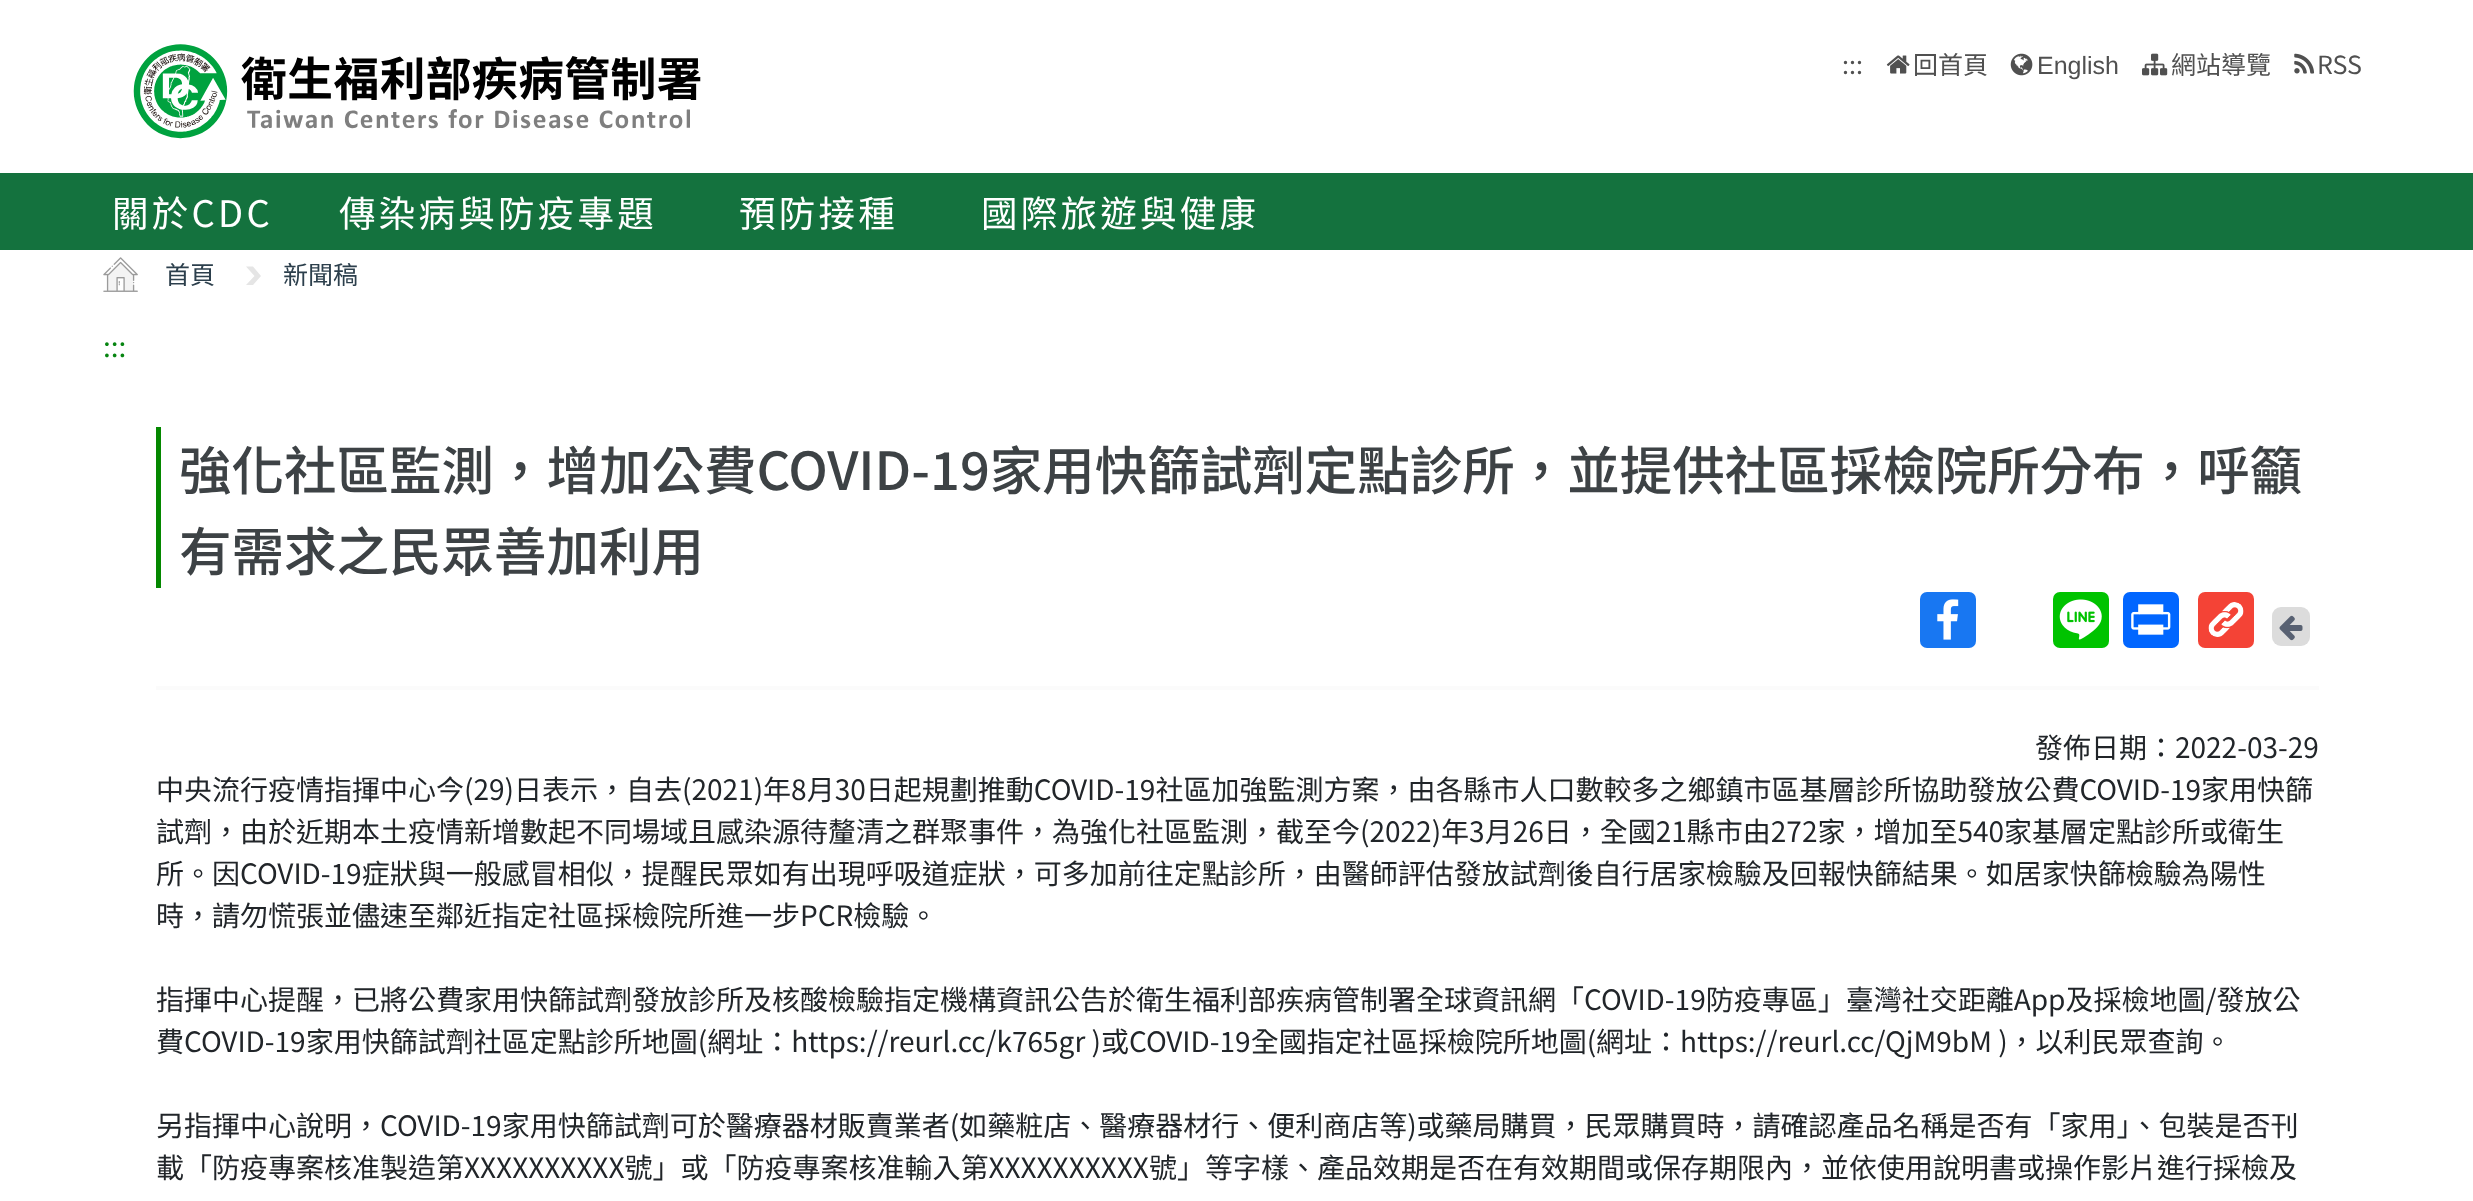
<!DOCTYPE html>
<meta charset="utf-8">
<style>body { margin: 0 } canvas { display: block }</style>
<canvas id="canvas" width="2473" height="1201"></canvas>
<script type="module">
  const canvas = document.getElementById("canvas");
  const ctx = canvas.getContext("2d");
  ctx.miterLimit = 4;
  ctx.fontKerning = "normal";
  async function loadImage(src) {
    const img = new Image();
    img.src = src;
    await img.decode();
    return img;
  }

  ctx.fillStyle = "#ffffff";
  ctx.fillRect(0, 0, 2473, 1201);
  ctx.drawImage(await loadImage("img1.png"), 133, 44, 568, 95);
  ctx.font = "25px Noto Sans TC";
  ctx.fillStyle = "#505050";
  ctx.fillText(":::", 1842, 74);
  ctx.drawImage(await loadImage("img2.png"), 1886, 55, 24, 19);
  ctx.fillText("回首頁", 1913, 74);
  ctx.drawImage(await loadImage("img3.png"), 2010, 53, 23, 23);
  ctx.font = "25px Liberation Sans";
  ctx.fillText("English", 2037, 74);
  ctx.drawImage(await loadImage("img4.png"), 2142, 53, 26, 23);
  ctx.font = "25px Noto Sans TC";
  ctx.fillText("網站導覽", 2171, 74);
  ctx.drawImage(await loadImage("img5.png"), 2294, 53, 21, 21);
  ctx.fillText("RSS", 2317, 74);
  ctx.fillStyle = "#14723e";
  ctx.fillRect(0, 173, 2473, 77);
  ctx.letterSpacing = "3.25px";
  ctx.font = "36.5px Noto Sans TC";
  ctx.fillStyle = "#ffffff";
  ctx.fillText("關於CDC", 112, 227);
  ctx.fillText("傳染病與防疫專題", 339, 227);
  ctx.fillText("預防接種", 739, 227);
  ctx.fillText("國際旅遊與健康", 981, 227);
  ctx.drawImage(await loadImage("img6.png"), 103, 257, 35, 35);
  ctx.letterSpacing = "0px";
  ctx.font = "25px Noto Sans TC";
  ctx.fillStyle = "#2c3f4c";
  ctx.fillText("首頁", 165, 284);
  ctx.fillStyle = "#e5e5e5";
  ctx.beginPath();
  ctx.moveTo(253, 266.5);
  ctx.lineTo(246, 266.5);
  ctx.lineTo(254.5, 276);
  ctx.lineTo(246, 285);
  ctx.lineTo(253, 285);
  ctx.lineTo(261, 276);
  ctx.closePath();
  ctx.fill();
  ctx.fillStyle = "#2c3f4c";
  ctx.fillText("新聞稿", 283, 284);
  ctx.font = "28px Noto Sans TC";
  ctx.fillStyle = "#068511";
  ctx.fillText(":::", 103, 357);
  ctx.fillStyle = "#048800";
  ctx.fillRect(156, 427, 5, 161);
  ctx.font = "500 52.5px Noto Sans TC";
  ctx.fillStyle = "#3d4245";
  ctx.fillText("強化社區監測，增加公費COVID-19家用快篩試劑定點診所，並提供社區採檢院所分布，呼籲", 179, 490);
  ctx.fillText("有需求之民眾善加利用", 179, 571);
  ctx.fillStyle = "#1877f2";
  ctx.beginPath();
  ctx.roundRect(1920, 592, 56, 56, 7);
  ctx.fill();
  ctx.drawImage(await loadImage("img7.png"), 1937, 599, 22, 41);
  ctx.fillStyle = "#00c300";
  ctx.beginPath();
  ctx.roundRect(2053, 592, 56, 56, 7);
  ctx.fill();
  ctx.drawImage(await loadImage("img8.png"), 2059, 599, 43, 41);
  ctx.fillStyle = "#0166ff";
  ctx.beginPath();
  ctx.roundRect(2123, 592, 56, 56, 7);
  ctx.fill();
  ctx.drawImage(await loadImage("img9.png"), 2131, 604, 40, 31);
  ctx.fillStyle = "#f44336";
  ctx.beginPath();
  ctx.roundRect(2198, 592, 56, 56, 7);
  ctx.fill();
  ctx.drawImage(await loadImage("img10.png"), 2208, 602, 36, 35);
  ctx.fillStyle = "#dcdcdc";
  ctx.beginPath();
  ctx.roundRect(2272, 607, 38, 39, 9);
  ctx.fill();
  ctx.drawImage(await loadImage("img11.png"), 2279, 615, 24, 26);
  ctx.fillStyle = "#fbfbfb";
  ctx.fillRect(156, 686, 2163, 4);
  ctx.font = "28px Noto Sans TC";
  ctx.fillStyle = "#212529";
  ctx.fillText("發佈日期：2022-03-29", 2035, 758);
  ctx.fillText("中央流行疫情指揮中心今(29)日表示，自去(2021)年8月30日起規劃推動COVID-19社區加強監測方案，由各縣市人口數較多之鄉鎮市區基層診所協助發放公費COVID-19家用快篩", 156, 800);
  ctx.fillText("試劑，由於近期本土疫情新增數起不同場域且感染源待釐清之群聚事件，為強化社區監測，截至今(2022)年3月26日，全國21縣市由272家，增加至540家基層定點診所或衛生", 156, 842);
  ctx.fillText("所。因COVID-19症狀與一般感冒相似，提醒民眾如有出現呼吸道症狀，可多加前往定點診所，由醫師評估發放試劑後自行居家檢驗及回報快篩結果。如居家快篩檢驗為陽性", 156, 884);
  ctx.fillText("時，請勿慌張並儘速至鄰近指定社區採檢院所進一步PCR檢驗。", 156, 926);
  ctx.fillText("指揮中心提醒，已將公費家用快篩試劑發放診所及核酸檢驗指定機構資訊公告於衛生福利部疾病管制署全球資訊網「COVID-19防疫專區」臺灣社交距離App及採檢地圖/發放公", 156, 1010);
  ctx.fillText("費COVID-19家用快篩試劑社區定點診所地圖(網址：https://reurl.cc/k765gr )或COVID-19全國指定社區採檢院所地圖(網址：https://reurl.cc/QjM9bM )，以利民眾查詢。", 156, 1052);
  ctx.fillText("另指揮中心說明，COVID-19家用快篩試劑可於醫療器材販賣業者(如藥粧店、醫療器材行、便利商店等)或藥局購買，民眾購買時，請確認產品名稱是否有「家用」、包裝是否刊", 156, 1136);
  ctx.fillText("載「防疫專案核准製造第XXXXXXXXXX號」或「防疫專案核准輸入第XXXXXXXXXX號」等字樣、產品效期是否在有效期間或保存期限內，並依使用說明書或操作影片進行採檢及", 156, 1178);
</script>
